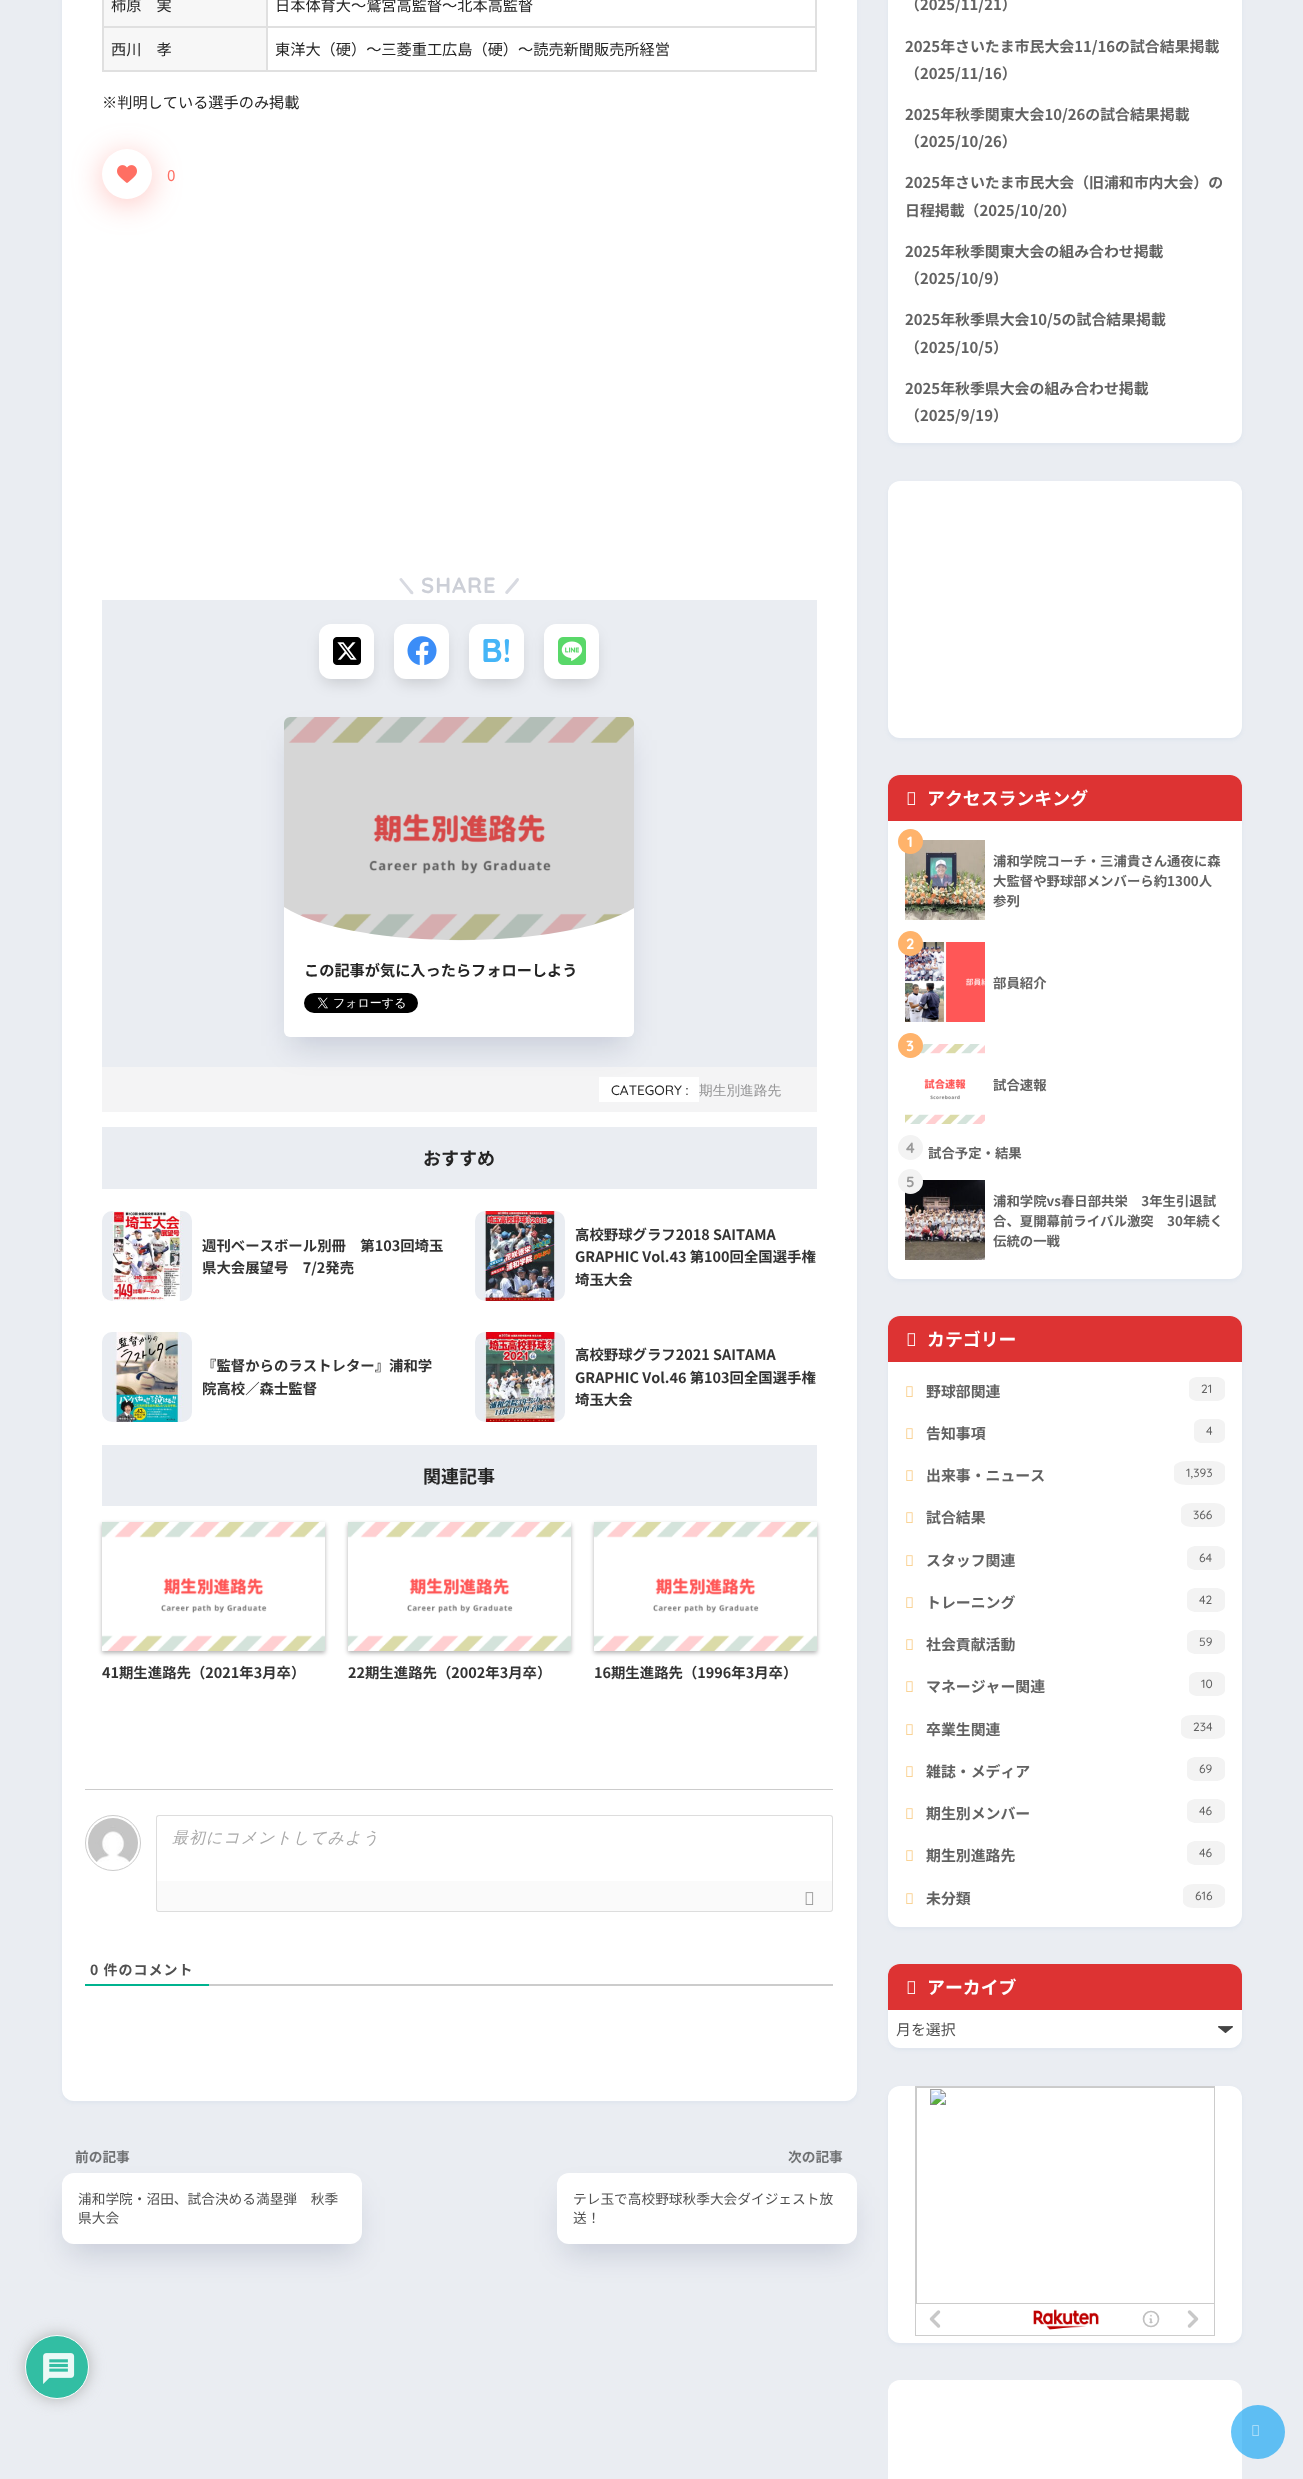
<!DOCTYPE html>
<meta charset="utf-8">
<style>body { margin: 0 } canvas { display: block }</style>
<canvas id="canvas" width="1303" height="2479"></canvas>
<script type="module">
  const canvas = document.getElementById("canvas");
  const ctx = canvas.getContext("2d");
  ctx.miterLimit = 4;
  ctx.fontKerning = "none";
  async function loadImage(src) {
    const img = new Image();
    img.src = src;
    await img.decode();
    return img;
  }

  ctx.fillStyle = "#eaedf2";
  ctx.fillRect(0, 0, 1303, 2479);
  ctx.fillStyle = "rgba(67, 133, 187, 0.07)";
  ctx.filter = "blur(2px)";
  ctx.beginPath();
  ctx.roundRect(62, -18, 795, 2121, 12);
  ctx.fill();
  ctx.filter = "none";
  ctx.fillStyle = "#ffffff";
  ctx.beginPath();
  ctx.roundRect(62, -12, 795, 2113, 12);
  ctx.fill();
  ctx.fillStyle = "#e0e0e0";
  ctx.fillRect(815, 0, 2, 72);
  ctx.fillRect(102, 70, 715, 2);
  ctx.fillRect(102, 0, 2, 72);
  ctx.fillRect(102, 26, 715, 2);
  ctx.fillStyle = "#f7f7f7";
  ctx.fillRect(104, 0, 162, 26);
  ctx.font = "15.2px Noto Sans JP";
  ctx.fillStyle = "#252525";
  ctx.fillText("柿原　実", 111, 11);
  ctx.fillText("日本体育大～鷲宮高監督～北本高監督", 275, 11);
  ctx.fillStyle = "#f7f7f7";
  ctx.fillRect(104, 28, 162, 42);
  ctx.fillStyle = "#e0e0e0";
  ctx.fillRect(266, 0, 2, 72);
  ctx.fillStyle = "#252525";
  ctx.fillText("西川　孝", 111, 55);
  ctx.fillText("東洋大（硬）～三菱重工広島（硬）～読売新聞販売所経営", 275, 55);
  ctx.fillText("※判明している選手のみ掲載", 102, 108);
  ctx.fillStyle = "rgba(255, 111, 99, 0.4)";
  ctx.filter = "blur(15px)";
  ctx.beginPath();
  ctx.roundRect(102, 154, 50, 50, 25);
  ctx.fill();
  ctx.filter = "none";
  ctx.fillStyle = "#ffffff";
  ctx.beginPath();
  ctx.arc(127, 174, 25, 0, Math.PI * 2);
  ctx.fill();
  ctx.drawImage(await loadImage("img1.png"), 117, 165, 20, 18);
  ctx.fillStyle = "#ff6f63";
  ctx.fillText("0", 167, 181);
  ctx.fillStyle = "#d8dae1";
  ctx.beginPath();
  ctx.moveTo(402, 578.5);
  ctx.lineTo(411, 589.5);
  ctx.bezierCurveTo(412, 590.5, 414.5, 592.5, 413, 594);
  ctx.bezierCurveTo(411, 595, 409.5, 592.5, 409, 591.5);
  ctx.lineTo(399.5, 580);
  ctx.bezierCurveTo(399, 578.5, 401, 577.5, 402, 578.5);
  ctx.closePath();
  ctx.fill();
  ctx.letterSpacing = "1px";
  ctx.font = "bold 22px Quicksand";
  ctx.fillStyle = "#cccfd7";
  ctx.fillText("SHARE", 421, 593);
  ctx.fillStyle = "#d8dae1";
  ctx.beginPath();
  ctx.moveTo(505.5, 591.5);
  ctx.lineTo(514.5, 581);
  ctx.bezierCurveTo(515.5, 580, 517, 577, 518.5, 578.5);
  ctx.bezierCurveTo(520, 580, 517.5, 582, 517, 583);
  ctx.lineTo(507.5, 594);
  ctx.bezierCurveTo(506, 594.5, 504.5, 593, 505.5, 591.5);
  ctx.closePath();
  ctx.fill();
  ctx.fillStyle = "#eaedf2";
  ctx.fillRect(102, 705, 715, 362);
  ctx.fillStyle = "#f4f4f5";
  ctx.fillRect(102, 1067, 715, 45);
  ctx.fillStyle = "#ffffff";
  ctx.fillRect(599, 1077, 100, 25);
  ctx.fillStyle = "rgba(0, 12, 66, 0.15)";
  ctx.filter = "blur(15px)";
  ctx.beginPath();
  ctx.rect(291, 740, 336, 306);
  ctx.fill();
  ctx.filter = "none";
  ctx.fillStyle = "#eaedf2";
  ctx.fillRect(102, 600, 715, 105);
  ctx.fillStyle = "rgba(0, 0, 0, 0.16)";
  ctx.filter = "blur(8px)";
  ctx.beginPath();
  ctx.roundRect(323, 635, 47, 47, 8);
  ctx.fill();
  ctx.filter = "none";
  ctx.fillStyle = "#ffffff";
  ctx.beginPath();
  ctx.roundRect(319, 624, 55, 55, 12);
  ctx.fill();
  ctx.drawImage(await loadImage("img2.png"), 333, 637, 28, 28);
  ctx.fillStyle = "rgba(0, 0, 0, 0.16)";
  ctx.filter = "blur(8px)";
  ctx.beginPath();
  ctx.roundRect(398, 635, 47, 47, 8);
  ctx.fill();
  ctx.filter = "none";
  ctx.fillStyle = "#ffffff";
  ctx.beginPath();
  ctx.roundRect(394, 624, 55, 55, 12);
  ctx.fill();
  ctx.drawImage(await loadImage("img3.png"), 407, 636, 30, 29);
  ctx.fillStyle = "rgba(0, 0, 0, 0.16)";
  ctx.filter = "blur(8px)";
  ctx.beginPath();
  ctx.roundRect(473, 635, 47, 47, 8);
  ctx.fill();
  ctx.filter = "none";
  ctx.fillStyle = "#ffffff";
  ctx.beginPath();
  ctx.roundRect(469, 624, 55, 55, 12);
  ctx.fill();
  ctx.letterSpacing = "0px";
  ctx.font = "bold 33px Quicksand";
  ctx.fillStyle = "#45b5f7";
  ctx.fillText("B!", 481, 662);
  ctx.fillStyle = "rgba(0, 0, 0, 0.16)";
  ctx.filter = "blur(8px)";
  ctx.beginPath();
  ctx.roundRect(548, 635, 47, 47, 8);
  ctx.fill();
  ctx.filter = "none";
  ctx.fillStyle = "#ffffff";
  ctx.beginPath();
  ctx.roundRect(544, 624, 55, 55, 12);
  ctx.fill();
  ctx.drawImage(await loadImage("img4.png"), 558, 637, 28, 28);
  ctx.beginPath();
  ctx.roundRect(284, 717, 350, 320, 6);
  ctx.fill();
  ctx.drawImage(await loadImage("img5.png"), 284, 717, 350, 223);
  ctx.fillStyle = "rgba(0, 0, 0, 0.16)";
  ctx.beginPath();
  ctx.moveTo(290, 717);
  ctx.lineTo(628, 717);
  ctx.bezierCurveTo(631, 717, 634, 720, 634, 723);
  ctx.lineTo(634, 908);
  ctx.bezierCurveTo(565, 951, 353, 951, 284, 907);
  ctx.lineTo(284, 723);
  ctx.bezierCurveTo(284, 720, 287, 717, 290, 717);
  ctx.closePath();
  ctx.fill();
  ctx.font = "bold 15.2px Noto Sans JP";
  ctx.fillStyle = "#252525";
  ctx.fillText("この記事が気に入ったらフォローしよう", 304, 976);
  ctx.drawImage(await loadImage("img6.png"), 304, 993, 114, 20);
  ctx.font = "500 13.7px Quicksand";
  ctx.fillText("CATEGORY :", 611, 1095);
  ctx.font = "500 13.7px WenQuanYi Zen Hei";
  ctx.fillStyle = "#929293";
  ctx.fillText("期生別進路先", 699, 1095);
  ctx.fillStyle = "#eaedf2";
  ctx.fillRect(102, 1127, 715, 62);
  ctx.font = "bold 18px Noto Sans JP";
  ctx.fillStyle = "#252525";
  ctx.fillText("おすすめ", 423, 1165);
  ctx.drawImage(await loadImage("img7.png"), 102, 1211, 90, 90);
  ctx.font = "bold 14.4px Noto Sans JP";
  ctx.fillStyle = "#333333";
  ctx.fillText("週刊ベースボール別冊　第103回埼玉", 202, 1251);
  ctx.fillText("県大会展望号　7/2発売", 202, 1273);
  ctx.drawImage(await loadImage("img8.png"), 475, 1211, 90, 90);
  ctx.fillText("高校野球グラフ2018 SAITAMA", 575, 1240);
  ctx.fillText("GRAPHIC Vol.43 第100回全国選手権", 575, 1262);
  ctx.fillText("埼玉大会", 575, 1285);
  ctx.drawImage(await loadImage("img9.png"), 102, 1332, 90, 90);
  ctx.fillText("『監督からのラストレター』浦和学", 202, 1371);
  ctx.fillText("院高校／森士監督", 202, 1394);
  ctx.drawImage(await loadImage("img10.png"), 475, 1332, 90, 90);
  ctx.fillText("高校野球グラフ2021 SAITAMA", 575, 1360);
  ctx.fillText("GRAPHIC Vol.46 第103回全国選手権", 575, 1383);
  ctx.fillText("埼玉大会", 575, 1405);
  ctx.fillStyle = "#eaedf2";
  ctx.fillRect(102, 1445, 715, 61);
  ctx.font = "bold 18px Noto Sans JP";
  ctx.fillStyle = "#252525";
  ctx.fillText("関連記事", 423, 1483);
  ctx.fillStyle = "rgba(0, 0, 0, 0.3)";
  ctx.filter = "blur(2px)";
  ctx.beginPath();
  ctx.rect(102, 1524, 223, 129);
  ctx.fill();
  ctx.filter = "none";
  ctx.drawImage(await loadImage("img11.png"), 102, 1522, 223, 129);
  ctx.font = "bold 14.4px Noto Sans JP";
  ctx.fillStyle = "#333333";
  ctx.fillText("41期生進路先（2021年3月卒）", 102, 1678);
  ctx.fillStyle = "rgba(0, 0, 0, 0.3)";
  ctx.filter = "blur(2px)";
  ctx.beginPath();
  ctx.rect(348, 1524, 223, 129);
  ctx.fill();
  ctx.filter = "none";
  ctx.drawImage(await loadImage("img11.png"), 348, 1522, 223, 129);
  ctx.fillStyle = "#333333";
  ctx.fillText("22期生進路先（2002年3月卒）", 348, 1678);
  ctx.fillStyle = "rgba(0, 0, 0, 0.3)";
  ctx.filter = "blur(2px)";
  ctx.beginPath();
  ctx.rect(594, 1524, 223, 129);
  ctx.fill();
  ctx.filter = "none";
  ctx.drawImage(await loadImage("img11.png"), 594, 1522, 223, 129);
  ctx.fillStyle = "#333333";
  ctx.fillText("16期生進路先（1996年3月卒）", 594, 1678);
  ctx.fillStyle = "#cccccc";
  ctx.fillRect(85, 1789, 748, 1);
  ctx.beginPath();
  ctx.arc(113, 1843, 27.5, 0, Math.PI * 2);
  ctx.strokeStyle = "#cccccc";
  ctx.stroke();
  ctx.drawImage(await loadImage("img12.png"), 88, 1818, 50, 44);
  ctx.fillStyle = "#dddddd";
  ctx.beginPath();
  ctx.moveTo(159, 1815);
  ctx.lineTo(830, 1815);
  ctx.bezierCurveTo(832, 1815, 833, 1816, 833, 1818);
  ctx.lineTo(833, 1881);
  ctx.lineTo(156, 1881);
  ctx.lineTo(156, 1818);
  ctx.bezierCurveTo(156, 1816, 157, 1815, 159, 1815);
  ctx.closePath();
  ctx.moveTo(159, 1816);
  ctx.lineTo(830, 1816);
  ctx.bezierCurveTo(831, 1816, 832, 1817, 832, 1818);
  ctx.lineTo(832, 1881);
  ctx.lineTo(157, 1881);
  ctx.lineTo(157, 1818);
  ctx.bezierCurveTo(157, 1817, 158, 1816, 159, 1816);
  ctx.closePath();
  ctx.fill("evenodd");
  ctx.letterSpacing = "1px";
  ctx.font = "italic 500 16px WenQuanYi Zen Hei";
  ctx.fillStyle = "#aaaaaa";
  ctx.fillText("最初にコメントしてみよう", 172, 1843);
  ctx.fillStyle = "#fafafa";
  ctx.beginPath();
  ctx.roundRect(156, 1881, 677, 31, [0, 0, 3, 3]);
  ctx.fill();
  ctx.fillStyle = "#dddddd";
  ctx.beginPath();
  ctx.moveTo(156, 1881);
  ctx.lineTo(833, 1881);
  ctx.lineTo(833, 1909);
  ctx.bezierCurveTo(833, 1911, 832, 1912, 830, 1912);
  ctx.lineTo(159, 1912);
  ctx.bezierCurveTo(157, 1912, 156, 1911, 156, 1909);
  ctx.closePath();
  ctx.moveTo(157, 1881);
  ctx.lineTo(832, 1881);
  ctx.lineTo(832, 1909);
  ctx.bezierCurveTo(832, 1910, 831, 1911, 830, 1911);
  ctx.lineTo(159, 1911);
  ctx.bezierCurveTo(158, 1911, 157, 1910, 157, 1909);
  ctx.closePath();
  ctx.fill("evenodd");
  ctx.drawImage(await loadImage("img13.png"), 805, 1892, 9, 13);
  ctx.fillStyle = "#cccccc";
  ctx.fillRect(209, 1984, 624, 2);
  ctx.fillStyle = "#00b38f";
  ctx.fillRect(85, 1984, 124, 2);
  ctx.font = "bold 14px Noto Sans JP";
  ctx.fillStyle = "#505050";
  ctx.fillText("0 件のコメント", 90, 1975);
  ctx.fillStyle = "rgba(0, 12, 66, 0.15)";
  ctx.filter = "blur(15px)";
  ctx.beginPath();
  ctx.roundRect(69, 2196, 286, 57, 5);
  ctx.fill();
  ctx.filter = "none";
  ctx.letterSpacing = "0px";
  ctx.font = "bold 13.7px Noto Sans JP";
  ctx.fillStyle = "#707274";
  ctx.fillText("前の記事", 75, 2162);
  ctx.fillStyle = "#ffffff";
  ctx.beginPath();
  ctx.roundRect(62, 2173, 300, 71, 12);
  ctx.fill();
  ctx.font = "13.7px Noto Sans JP";
  ctx.fillStyle = "#505050";
  ctx.fillText("浦和学院・沼田、試合決める満塁弾　秋季", 78, 2204);
  ctx.fillText("県大会", 78, 2223);
  ctx.fillStyle = "rgba(0, 12, 66, 0.15)";
  ctx.filter = "blur(15px)";
  ctx.beginPath();
  ctx.roundRect(564, 2196, 286, 57, 5);
  ctx.fill();
  ctx.filter = "none";
  ctx.font = "bold 13.7px Noto Sans JP";
  ctx.fillStyle = "#707274";
  ctx.fillText("次の記事", 788, 2162);
  ctx.fillStyle = "#ffffff";
  ctx.beginPath();
  ctx.roundRect(557, 2173, 300, 71, 12);
  ctx.fill();
  ctx.font = "13.7px Noto Sans JP";
  ctx.fillStyle = "#505050";
  ctx.fillText("テレ玉で高校野球秋季大会ダイジェスト放", 573, 2204);
  ctx.fillText("送！", 573, 2223);
  ctx.fillStyle = "rgba(67, 133, 187, 0.07)";
  ctx.filter = "blur(2px)";
  ctx.beginPath();
  ctx.roundRect(888, -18, 354, 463, 12);
  ctx.fill();
  ctx.filter = "none";
  ctx.fillStyle = "#ffffff";
  ctx.beginPath();
  ctx.roundRect(888, -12, 354, 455, 12);
  ctx.fill();
  ctx.font = "bold 14.9px Noto Sans JP";
  ctx.fillStyle = "#626262";
  ctx.fillText("（2025/11/21）", 905, 10);
  ctx.fillText("2025年さいたま市民大会11/16の試合結果掲載", 905, 52);
  ctx.fillText("（2025/11/16）", 905, 79);
  ctx.fillText("2025年秋季関東大会10/26の試合結果掲載", 905, 120);
  ctx.fillText("（2025/10/26）", 905, 147);
  ctx.fillText("2025年さいたま市民大会（旧浦和市内大会）の", 905, 188);
  ctx.fillText("日程掲載（2025/10/20）", 905, 216);
  ctx.fillText("2025年秋季関東大会の組み合わせ掲載", 905, 257);
  ctx.fillText("（2025/10/9）", 905, 284);
  ctx.fillText("2025年秋季県大会10/5の試合結果掲載", 905, 325);
  ctx.fillText("（2025/10/5）", 905, 353);
  ctx.fillText("2025年秋季県大会の組み合わせ掲載", 905, 394);
  ctx.fillText("（2025/9/19）", 905, 421);
  ctx.fillStyle = "rgba(67, 133, 187, 0.07)";
  ctx.filter = "blur(2px)";
  ctx.beginPath();
  ctx.roundRect(888, 483, 354, 257, 12);
  ctx.fill();
  ctx.filter = "none";
  ctx.fillStyle = "#ffffff";
  ctx.beginPath();
  ctx.roundRect(888, 481, 354, 257, 12);
  ctx.fill();
  ctx.fillStyle = "rgba(67, 133, 187, 0.07)";
  ctx.filter = "blur(2px)";
  ctx.beginPath();
  ctx.roundRect(888, 777, 354, 504, 12);
  ctx.fill();
  ctx.filter = "none";
  ctx.fillStyle = "#ffffff";
  ctx.beginPath();
  ctx.roundRect(888, 775, 354, 504, 12);
  ctx.fill();
  ctx.fillStyle = "#dd3333";
  ctx.beginPath();
  ctx.roundRect(888, 775, 354, 46, [12, 12, 0, 0]);
  ctx.fill();
  ctx.drawImage(await loadImage("img14.png"), 907, 792, 9, 13);
  ctx.font = "bold 17.9px Noto Sans JP";
  ctx.fillStyle = "#ffffff";
  ctx.fillText("アクセスランキング", 927, 805);
  ctx.drawImage(await loadImage("img15.png"), 905, 840, 80, 80);
  ctx.fillStyle = "#ffb36b";
  ctx.beginPath();
  ctx.arc(910.5, 841.5, 12.5, 0, Math.PI * 2);
  ctx.fill();
  ctx.font = "bold 14.9px Quicksand";
  ctx.fillStyle = "#ffffff";
  ctx.fillText("1", 907, 847);
  ctx.font = "bold 13.4px Noto Sans JP";
  ctx.fillStyle = "#626262";
  ctx.fillText("浦和学院コーチ・三浦貴さん通夜に森", 993, 866);
  ctx.fillText("大監督や野球部メンバーら約1300人", 993, 886);
  ctx.fillText("参列", 993, 906);
  ctx.drawImage(await loadImage("img16.png"), 905, 942, 80, 80);
  ctx.fillStyle = "#ffb36b";
  ctx.beginPath();
  ctx.arc(910.5, 943.5, 12.5, 0, Math.PI * 2);
  ctx.fill();
  ctx.font = "bold 14.9px Quicksand";
  ctx.fillStyle = "#ffffff";
  ctx.fillText("2", 906, 949);
  ctx.font = "bold 13.4px Noto Sans JP";
  ctx.fillStyle = "#626262";
  ctx.fillText("部員紹介", 993, 988);
  ctx.drawImage(await loadImage("img17.png"), 905, 1044, 80, 80);
  ctx.fillStyle = "#ffb36b";
  ctx.beginPath();
  ctx.arc(910.5, 1045.5, 12.5, 0, Math.PI * 2);
  ctx.fill();
  ctx.font = "bold 14.9px Quicksand";
  ctx.fillStyle = "#ffffff";
  ctx.fillText("3", 906, 1051);
  ctx.font = "bold 13.4px Noto Sans JP";
  ctx.fillStyle = "#626262";
  ctx.fillText("試合速報", 993, 1090);
  ctx.fillStyle = "#f3f3f3";
  ctx.beginPath();
  ctx.arc(910.5, 1147.5, 12.5, 0, Math.PI * 2);
  ctx.fill();
  ctx.font = "bold 14.9px Quicksand";
  ctx.fillStyle = "#9a9a9a";
  ctx.fillText("4", 906, 1153);
  ctx.font = "bold 13.4px Noto Sans JP";
  ctx.fillStyle = "#626262";
  ctx.fillText("試合予定・結果", 928, 1158);
  ctx.drawImage(await loadImage("img18.png"), 905, 1180, 80, 80);
  ctx.fillStyle = "#f3f3f3";
  ctx.beginPath();
  ctx.arc(910.5, 1181.5, 12.5, 0, Math.PI * 2);
  ctx.fill();
  ctx.font = "bold 14.9px Quicksand";
  ctx.fillStyle = "#9a9a9a";
  ctx.fillText("5", 906, 1187);
  ctx.font = "bold 13.4px Noto Sans JP";
  ctx.fillStyle = "#626262";
  ctx.fillText("浦和学院vs春日部共栄　3年生引退試", 993, 1206);
  ctx.fillText("合、夏開幕前ライバル激突　30年続く", 993, 1226);
  ctx.fillText("伝統の一戦", 993, 1246);
  ctx.fillStyle = "rgba(67, 133, 187, 0.07)";
  ctx.filter = "blur(2px)";
  ctx.beginPath();
  ctx.roundRect(888, 1318, 354, 611, 12);
  ctx.fill();
  ctx.filter = "none";
  ctx.fillStyle = "#ffffff";
  ctx.beginPath();
  ctx.roundRect(888, 1316, 354, 611, 12);
  ctx.fill();
  ctx.fillStyle = "#dd3333";
  ctx.beginPath();
  ctx.roundRect(888, 1316, 354, 46, [12, 12, 0, 0]);
  ctx.fill();
  ctx.drawImage(await loadImage("img14.png"), 907, 1333, 9, 13);
  ctx.font = "bold 17.9px Noto Sans JP";
  ctx.fillStyle = "#ffffff";
  ctx.fillText("カテゴリー", 927, 1346);
  ctx.drawImage(await loadImage("img19.png"), 906, 1386, 7, 11);
  ctx.font = "bold 14.9px Noto Sans JP";
  ctx.fillStyle = "#626262";
  ctx.fillText("野球部関連", 926, 1397);
  ctx.fillStyle = "#f3f3f3";
  ctx.beginPath();
  ctx.moveTo(1198, 1377);
  ctx.lineTo(1216, 1377);
  ctx.bezierCurveTo(1221, 1377, 1225, 1379.5, 1225, 1383);
  ctx.lineTo(1225, 1395);
  ctx.bezierCurveTo(1225, 1398.5, 1221, 1401, 1216, 1401);
  ctx.lineTo(1198, 1401);
  ctx.bezierCurveTo(1193, 1401, 1189, 1398.5, 1189, 1395);
  ctx.lineTo(1189, 1383);
  ctx.bezierCurveTo(1189, 1379.5, 1193, 1377, 1198, 1377);
  ctx.closePath();
  ctx.fill();
  ctx.font = "500 12px Quicksand";
  ctx.fillStyle = "#626262";
  ctx.fillText("21", 1201, 1393);
  ctx.drawImage(await loadImage("img19.png"), 906, 1428, 7, 11);
  ctx.font = "bold 14.9px Noto Sans JP";
  ctx.fillText("告知事項", 926, 1439);
  ctx.fillStyle = "#f3f3f3";
  ctx.beginPath();
  ctx.moveTo(1202, 1419);
  ctx.lineTo(1217, 1419);
  ctx.bezierCurveTo(1221.5, 1419, 1225, 1421.5, 1225, 1425);
  ctx.lineTo(1225, 1437);
  ctx.bezierCurveTo(1225, 1440.5, 1221.5, 1443, 1217, 1443);
  ctx.lineTo(1202, 1443);
  ctx.bezierCurveTo(1197.5, 1443, 1194, 1440.5, 1194, 1437);
  ctx.lineTo(1194, 1425);
  ctx.bezierCurveTo(1194, 1421.5, 1197.5, 1419, 1202, 1419);
  ctx.closePath();
  ctx.fill();
  ctx.font = "500 12px Quicksand";
  ctx.fillStyle = "#626262";
  ctx.fillText("4", 1206, 1435);
  ctx.drawImage(await loadImage("img19.png"), 906, 1470, 7, 11);
  ctx.font = "bold 14.9px Noto Sans JP";
  ctx.fillText("出来事・ニュース", 926, 1481);
  ctx.fillStyle = "#f3f3f3";
  ctx.beginPath();
  ctx.moveTo(1187, 1461);
  ctx.lineTo(1212, 1461);
  ctx.bezierCurveTo(1219, 1461, 1225, 1464, 1225, 1467);
  ctx.lineTo(1225, 1479);
  ctx.bezierCurveTo(1225, 1482, 1219, 1485, 1212, 1485);
  ctx.lineTo(1187, 1485);
  ctx.bezierCurveTo(1180, 1485, 1174, 1482, 1174, 1479);
  ctx.lineTo(1174, 1467);
  ctx.bezierCurveTo(1174, 1464, 1180, 1461, 1187, 1461);
  ctx.closePath();
  ctx.fill();
  ctx.font = "500 12px Quicksand";
  ctx.fillStyle = "#626262";
  ctx.fillText("1,393", 1186, 1477);
  ctx.drawImage(await loadImage("img19.png"), 906, 1512, 7, 11);
  ctx.font = "bold 14.9px Noto Sans JP";
  ctx.fillText("試合結果", 926, 1523);
  ctx.fillStyle = "#f3f3f3";
  ctx.beginPath();
  ctx.moveTo(1192, 1503);
  ctx.lineTo(1214, 1503);
  ctx.bezierCurveTo(1220, 1503, 1225, 1506, 1225, 1509);
  ctx.lineTo(1225, 1521);
  ctx.bezierCurveTo(1225, 1524, 1220, 1527, 1214, 1527);
  ctx.lineTo(1192, 1527);
  ctx.bezierCurveTo(1186, 1527, 1181, 1524, 1181, 1521);
  ctx.lineTo(1181, 1509);
  ctx.bezierCurveTo(1181, 1506, 1186, 1503, 1192, 1503);
  ctx.closePath();
  ctx.fill();
  ctx.font = "500 12px Quicksand";
  ctx.fillStyle = "#626262";
  ctx.fillText("366", 1193, 1519);
  ctx.drawImage(await loadImage("img19.png"), 906, 1555, 7, 11);
  ctx.font = "bold 14.9px Noto Sans JP";
  ctx.fillText("スタッフ関連", 926, 1566);
  ctx.fillStyle = "#f3f3f3";
  ctx.beginPath();
  ctx.moveTo(1196.5, 1546);
  ctx.lineTo(1215.5, 1546);
  ctx.bezierCurveTo(1220.5, 1546, 1225, 1548.5, 1225, 1552);
  ctx.lineTo(1225, 1564);
  ctx.bezierCurveTo(1225, 1567.5, 1220.5, 1570, 1215.5, 1570);
  ctx.lineTo(1196.5, 1570);
  ctx.bezierCurveTo(1191.5, 1570, 1187, 1567.5, 1187, 1564);
  ctx.lineTo(1187, 1552);
  ctx.bezierCurveTo(1187, 1548.5, 1191.5, 1546, 1196.5, 1546);
  ctx.closePath();
  ctx.fill();
  ctx.font = "500 12px Quicksand";
  ctx.fillStyle = "#626262";
  ctx.fillText("64", 1199, 1562);
  ctx.drawImage(await loadImage("img19.png"), 906, 1597, 7, 11);
  ctx.font = "bold 14.9px Noto Sans JP";
  ctx.fillText("トレーニング", 926, 1608);
  ctx.fillStyle = "#f3f3f3";
  ctx.beginPath();
  ctx.moveTo(1196.5, 1588);
  ctx.lineTo(1215.5, 1588);
  ctx.bezierCurveTo(1220.5, 1588, 1225, 1590.5, 1225, 1594);
  ctx.lineTo(1225, 1606);
  ctx.bezierCurveTo(1225, 1609.5, 1220.5, 1612, 1215.5, 1612);
  ctx.lineTo(1196.5, 1612);
  ctx.bezierCurveTo(1191.5, 1612, 1187, 1609.5, 1187, 1606);
  ctx.lineTo(1187, 1594);
  ctx.bezierCurveTo(1187, 1590.5, 1191.5, 1588, 1196.5, 1588);
  ctx.closePath();
  ctx.fill();
  ctx.font = "500 12px Quicksand";
  ctx.fillStyle = "#626262";
  ctx.fillText("42", 1199, 1604);
  ctx.drawImage(await loadImage("img19.png"), 906, 1639, 7, 11);
  ctx.font = "bold 14.9px Noto Sans JP";
  ctx.fillText("社会貢献活動", 926, 1650);
  ctx.fillStyle = "#f3f3f3";
  ctx.beginPath();
  ctx.moveTo(1196.5, 1630);
  ctx.lineTo(1215.5, 1630);
  ctx.bezierCurveTo(1220.5, 1630, 1225, 1632.5, 1225, 1636);
  ctx.lineTo(1225, 1648);
  ctx.bezierCurveTo(1225, 1651.5, 1220.5, 1654, 1215.5, 1654);
  ctx.lineTo(1196.5, 1654);
  ctx.bezierCurveTo(1191.5, 1654, 1187, 1651.5, 1187, 1648);
  ctx.lineTo(1187, 1636);
  ctx.bezierCurveTo(1187, 1632.5, 1191.5, 1630, 1196.5, 1630);
  ctx.closePath();
  ctx.fill();
  ctx.font = "500 12px Quicksand";
  ctx.fillStyle = "#626262";
  ctx.fillText("59", 1199, 1646);
  ctx.drawImage(await loadImage("img19.png"), 906, 1681, 7, 11);
  ctx.font = "bold 14.9px Noto Sans JP";
  ctx.fillText("マネージャー関連", 926, 1692);
  ctx.fillStyle = "#f3f3f3";
  ctx.beginPath();
  ctx.moveTo(1198, 1672);
  ctx.lineTo(1216, 1672);
  ctx.bezierCurveTo(1221, 1672, 1225, 1674.5, 1225, 1678);
  ctx.lineTo(1225, 1690);
  ctx.bezierCurveTo(1225, 1693.5, 1221, 1696, 1216, 1696);
  ctx.lineTo(1198, 1696);
  ctx.bezierCurveTo(1193, 1696, 1189, 1693.5, 1189, 1690);
  ctx.lineTo(1189, 1678);
  ctx.bezierCurveTo(1189, 1674.5, 1193, 1672, 1198, 1672);
  ctx.closePath();
  ctx.fill();
  ctx.font = "500 12px Quicksand";
  ctx.fillStyle = "#626262";
  ctx.fillText("10", 1201, 1688);
  ctx.drawImage(await loadImage("img19.png"), 906, 1724, 7, 11);
  ctx.font = "bold 14.9px Noto Sans JP";
  ctx.fillText("卒業生関連", 926, 1735);
  ctx.fillStyle = "#f3f3f3";
  ctx.beginPath();
  ctx.moveTo(1192, 1715);
  ctx.lineTo(1214, 1715);
  ctx.bezierCurveTo(1220, 1715, 1225, 1718, 1225, 1721);
  ctx.lineTo(1225, 1733);
  ctx.bezierCurveTo(1225, 1736, 1220, 1739, 1214, 1739);
  ctx.lineTo(1192, 1739);
  ctx.bezierCurveTo(1186, 1739, 1181, 1736, 1181, 1733);
  ctx.lineTo(1181, 1721);
  ctx.bezierCurveTo(1181, 1718, 1186, 1715, 1192, 1715);
  ctx.closePath();
  ctx.fill();
  ctx.font = "500 12px Quicksand";
  ctx.fillStyle = "#626262";
  ctx.fillText("234", 1193, 1731);
  ctx.drawImage(await loadImage("img19.png"), 906, 1766, 7, 11);
  ctx.font = "bold 14.9px Noto Sans JP";
  ctx.fillText("雑誌・メディア", 926, 1777);
  ctx.fillStyle = "#f3f3f3";
  ctx.beginPath();
  ctx.moveTo(1196.5, 1757);
  ctx.lineTo(1215.5, 1757);
  ctx.bezierCurveTo(1220.5, 1757, 1225, 1759.5, 1225, 1763);
  ctx.lineTo(1225, 1775);
  ctx.bezierCurveTo(1225, 1778.5, 1220.5, 1781, 1215.5, 1781);
  ctx.lineTo(1196.5, 1781);
  ctx.bezierCurveTo(1191.5, 1781, 1187, 1778.5, 1187, 1775);
  ctx.lineTo(1187, 1763);
  ctx.bezierCurveTo(1187, 1759.5, 1191.5, 1757, 1196.5, 1757);
  ctx.closePath();
  ctx.fill();
  ctx.font = "500 12px Quicksand";
  ctx.fillStyle = "#626262";
  ctx.fillText("69", 1199, 1773);
  ctx.drawImage(await loadImage("img19.png"), 906, 1808, 7, 11);
  ctx.font = "bold 14.9px Noto Sans JP";
  ctx.fillText("期生別メンバー", 926, 1819);
  ctx.fillStyle = "#f3f3f3";
  ctx.beginPath();
  ctx.moveTo(1196.5, 1799);
  ctx.lineTo(1215.5, 1799);
  ctx.bezierCurveTo(1220.5, 1799, 1225, 1801.5, 1225, 1805);
  ctx.lineTo(1225, 1817);
  ctx.bezierCurveTo(1225, 1820.5, 1220.5, 1823, 1215.5, 1823);
  ctx.lineTo(1196.5, 1823);
  ctx.bezierCurveTo(1191.5, 1823, 1187, 1820.5, 1187, 1817);
  ctx.lineTo(1187, 1805);
  ctx.bezierCurveTo(1187, 1801.5, 1191.5, 1799, 1196.5, 1799);
  ctx.closePath();
  ctx.fill();
  ctx.font = "500 12px Quicksand";
  ctx.fillStyle = "#626262";
  ctx.fillText("46", 1199, 1815);
  ctx.drawImage(await loadImage("img19.png"), 906, 1850, 7, 11);
  ctx.font = "bold 14.9px Noto Sans JP";
  ctx.fillText("期生別進路先", 926, 1861);
  ctx.fillStyle = "#f3f3f3";
  ctx.beginPath();
  ctx.moveTo(1196.5, 1841);
  ctx.lineTo(1215.5, 1841);
  ctx.bezierCurveTo(1220.5, 1841, 1225, 1843.5, 1225, 1847);
  ctx.lineTo(1225, 1859);
  ctx.bezierCurveTo(1225, 1862.5, 1220.5, 1865, 1215.5, 1865);
  ctx.lineTo(1196.5, 1865);
  ctx.bezierCurveTo(1191.5, 1865, 1187, 1862.5, 1187, 1859);
  ctx.lineTo(1187, 1847);
  ctx.bezierCurveTo(1187, 1843.5, 1191.5, 1841, 1196.5, 1841);
  ctx.closePath();
  ctx.fill();
  ctx.font = "500 12px Quicksand";
  ctx.fillStyle = "#626262";
  ctx.fillText("46", 1199, 1857);
  ctx.drawImage(await loadImage("img19.png"), 906, 1893, 7, 11);
  ctx.font = "bold 14.9px Noto Sans JP";
  ctx.fillText("未分類", 926, 1904);
  ctx.fillStyle = "#f3f3f3";
  ctx.beginPath();
  ctx.moveTo(1194, 1884);
  ctx.lineTo(1214, 1884);
  ctx.bezierCurveTo(1220, 1884, 1225, 1887, 1225, 1890);
  ctx.lineTo(1225, 1902);
  ctx.bezierCurveTo(1225, 1905, 1220, 1908, 1214, 1908);
  ctx.lineTo(1194, 1908);
  ctx.bezierCurveTo(1188, 1908, 1183, 1905, 1183, 1902);
  ctx.lineTo(1183, 1890);
  ctx.bezierCurveTo(1183, 1887, 1188, 1884, 1194, 1884);
  ctx.closePath();
  ctx.fill();
  ctx.font = "500 12px Quicksand";
  ctx.fillStyle = "#626262";
  ctx.fillText("616", 1195, 1900);
  ctx.fillStyle = "rgba(67, 133, 187, 0.07)";
  ctx.filter = "blur(2px)";
  ctx.beginPath();
  ctx.roundRect(888, 1966, 354, 84, 12);
  ctx.fill();
  ctx.filter = "none";
  ctx.fillStyle = "#ffffff";
  ctx.beginPath();
  ctx.roundRect(888, 1964, 354, 84, 12);
  ctx.fill();
  ctx.fillStyle = "#dd3333";
  ctx.beginPath();
  ctx.roundRect(888, 1964, 354, 46, [12, 12, 0, 0]);
  ctx.fill();
  ctx.drawImage(await loadImage("img14.png"), 907, 1981, 9, 13);
  ctx.font = "bold 17.9px Noto Sans JP";
  ctx.fillStyle = "#ffffff";
  ctx.fillText("アーカイブ", 927, 1994);
  ctx.drawImage(await loadImage("img20.png"), 1218, 2026, 15, 7);
  ctx.font = "14.9px Noto Sans JP";
  ctx.fillStyle = "#505050";
  ctx.fillText("月を選択", 896, 2035);
  ctx.fillStyle = "rgba(67, 133, 187, 0.07)";
  ctx.filter = "blur(2px)";
  ctx.beginPath();
  ctx.roundRect(888, 2088, 354, 257, 12);
  ctx.fill();
  ctx.filter = "none";
  ctx.fillStyle = "#ffffff";
  ctx.beginPath();
  ctx.roundRect(888, 2086, 354, 257, 12);
  ctx.fill();
  ctx.drawImage(await loadImage("img21.png"), 915, 2086, 300, 250);
  ctx.beginPath();
  ctx.roundRect(888, 2380, 354, 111, 12);
  ctx.fill();
  ctx.fillStyle = "#b0b1b1";
  ctx.filter = "blur(7.5px)";
  ctx.beginPath();
  ctx.roundRect(25, 2335, 64, 64, 32);
  ctx.fill();
  ctx.filter = "none";
  ctx.fillStyle = "#32bea3";
  ctx.beginPath();
  ctx.arc(57, 2367, 31.5, 0, Math.PI * 2);
  ctx.fill();
  ctx.strokeStyle = "#fdfdfe";
  ctx.stroke();
  ctx.drawImage(await loadImage("img22.png"), 43, 2353, 32, 31);
  ctx.fillStyle = "rgba(0, 158, 243, 0.6)";
  ctx.beginPath();
  ctx.arc(1258, 2432, 27, 0, Math.PI * 2);
  ctx.fill();
  ctx.drawImage(await loadImage("img23.png"), 1252, 2425, 7, 11);
</script>
